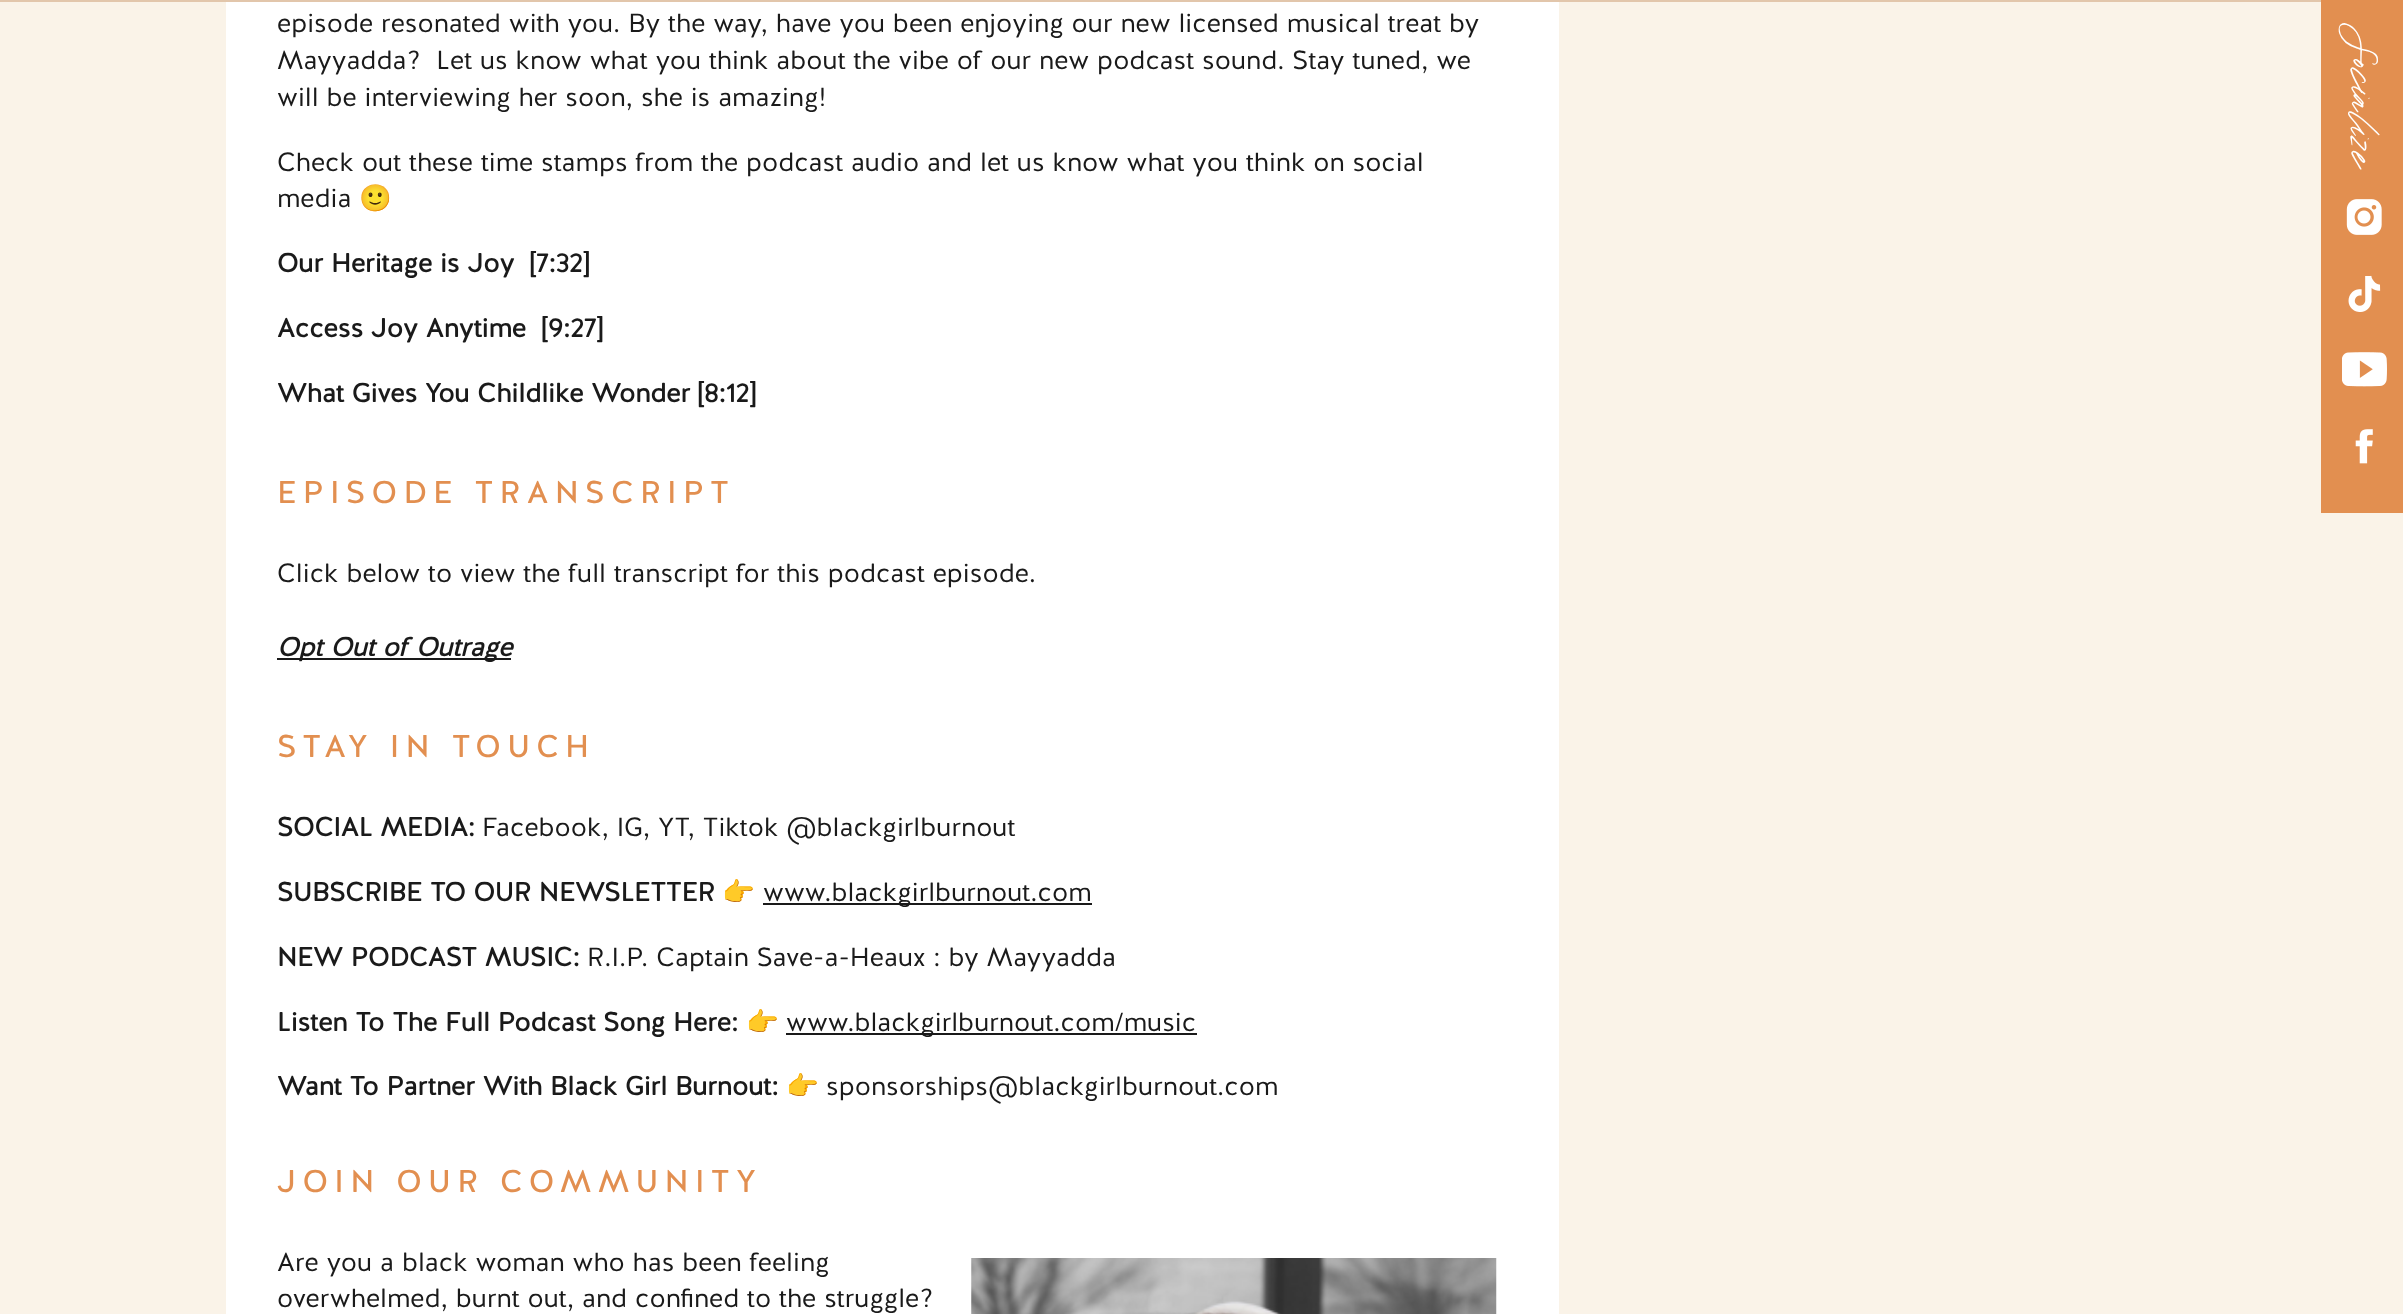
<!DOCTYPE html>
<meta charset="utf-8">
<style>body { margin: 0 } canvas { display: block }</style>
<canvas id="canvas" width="2403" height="1314"></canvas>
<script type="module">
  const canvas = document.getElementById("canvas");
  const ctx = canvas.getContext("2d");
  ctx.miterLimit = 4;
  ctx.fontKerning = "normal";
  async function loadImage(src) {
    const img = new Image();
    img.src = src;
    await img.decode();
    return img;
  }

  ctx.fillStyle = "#faf3e8";
  ctx.fillRect(0, 0, 2403, 1314);
  ctx.fillStyle = "#ffffff";
  ctx.fillRect(226, 2, 1333, 1312);
  ctx.font = "26.25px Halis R";
  ctx.fillStyle = "#1a1a1a";
  ctx.fillText("episode resonated with you. By the way, have you been enjoying our new licensed musical treat by", 277, 32);
  ctx.fillText("Mayyadda?  Let us know what you think about the vibe of our new podcast sound. Stay tuned, we", 277, 69);
  ctx.fillText("will be interviewing her soon, she is amazing!", 277, 106);
  ctx.fillText("Check out these time stamps from the podcast audio and let us know what you think on social", 277, 171);
  ctx.fillText("media", 277, 207);
  ctx.font = "26.25px Noto Color Emoji";
  ctx.fillText("🙂", 359, 207);
  ctx.font = "bold 26.25px Halis R";
  ctx.fillText("Our Heritage is Joy  [7:32]", 277, 272);
  ctx.fillText("Access Joy Anytime  [9:27]", 277, 337);
  ctx.fillText("What Gives You Childlike Wonder [8:12]", 277, 402);
  ctx.letterSpacing = "6.25px";
  ctx.font = "31.5px 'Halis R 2'";
  ctx.fillStyle = "#e28f50";
  ctx.fillText("EPISODE TRANSCRIPT", 277, 503);
  ctx.letterSpacing = "0px";
  ctx.font = "26.25px Halis R";
  ctx.fillStyle = "#1a1a1a";
  ctx.fillText("Click below to view the full transcript for this podcast episode.", 277, 582);
  ctx.fillRect(277, 658, 234, 2);
  ctx.font = "italic bold 26.25px Halis R";
  ctx.fillText("Opt Out of Outrage", 277, 656);
  ctx.letterSpacing = "6.25px";
  ctx.font = "31.5px 'Halis R 2'";
  ctx.fillStyle = "#e28f50";
  ctx.fillText("STAY IN TOUCH", 277, 757);
  ctx.letterSpacing = "0px";
  ctx.font = "bold 26.25px Halis R";
  ctx.fillStyle = "#1a1a1a";
  ctx.fillText("SOCIAL MEDIA:", 277, 836);
  ctx.font = "26.25px Halis R";
  ctx.fillText("Facebook, IG, YT, Tiktok @blackgirlburnout", 482, 836);
  ctx.font = "bold 26.25px Halis R";
  ctx.fillText("SUBSCRIBE TO OUR NEWSLETTER", 277, 901);
  ctx.font = "bold 26.25px Noto Color Emoji";
  ctx.fillText("👉", 722, 901);
  ctx.fillRect(763, 903, 329, 2);
  ctx.font = "26.25px Halis R";
  ctx.fillText("www.blackgirlburnout.com", 763, 901);
  ctx.font = "bold 26.25px Halis R";
  ctx.fillText("NEW PODCAST MUSIC:", 277, 966);
  ctx.font = "26.25px Halis R";
  ctx.fillText("R.I.P. Captain Save-a-Heaux : by Mayyadda", 587, 966);
  ctx.font = "bold 26.25px Halis R";
  ctx.fillText("Listen To The Full Podcast Song Here:", 277, 1031);
  ctx.font = "26.25px Noto Color Emoji";
  ctx.fillText("👉", 746, 1031);
  ctx.fillRect(786, 1033, 411, 2);
  ctx.font = "26.25px Halis R";
  ctx.fillText("www.blackgirlburnout.com/music", 786, 1031);
  ctx.font = "bold 26.25px Halis R";
  ctx.fillText("Want To Partner With Black Girl Burnout:", 277, 1095);
  ctx.font = "26.25px Noto Color Emoji";
  ctx.fillText("👉", 786, 1095);
  ctx.font = "26.25px Halis R";
  ctx.fillText("sponsorships@blackgirlburnout.com", 826, 1095);
  ctx.letterSpacing = "6.25px";
  ctx.font = "31.5px 'Halis R 2'";
  ctx.fillStyle = "#e28f50";
  ctx.fillText("JOIN OUR COMMUNITY", 277, 1192);
  ctx.letterSpacing = "0px";
  ctx.font = "26.25px Halis R";
  ctx.fillStyle = "#1a1a1a";
  ctx.fillText("Are you a black woman who has been feeling", 277, 1271);
  ctx.fillText("overwhelmed, burnt out, and confined to the struggle?", 277, 1307);
  ctx.drawImage(await loadImage("img1.png"), 971, 1258, 526, 56);
  ctx.fillStyle = "#e2c6ab";
  ctx.fillRect(0, 0, 2321, 2);
  ctx.fillStyle = "#e28f50";
  ctx.fillRect(2321, 0, 82, 513);
  ctx.font = "49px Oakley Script";
  ctx.fillStyle = "#ffffff";
  ctx.save();
  ctx.translate(2344, 23);
  ctx.rotate(90 * Math.PI / 180);
  ctx.fillText("Socialize", 0, 0);
  ctx.restore();
  ctx.drawImage(await loadImage("img2.png"), 2346, 199, 36, 36);
  ctx.drawImage(await loadImage("img3.png"), 2348, 275, 33, 37);
  ctx.drawImage(await loadImage("img4.png"), 2342, 352, 45, 35);
  ctx.drawImage(await loadImage("img5.png"), 2355, 429, 18, 35);
</script>
